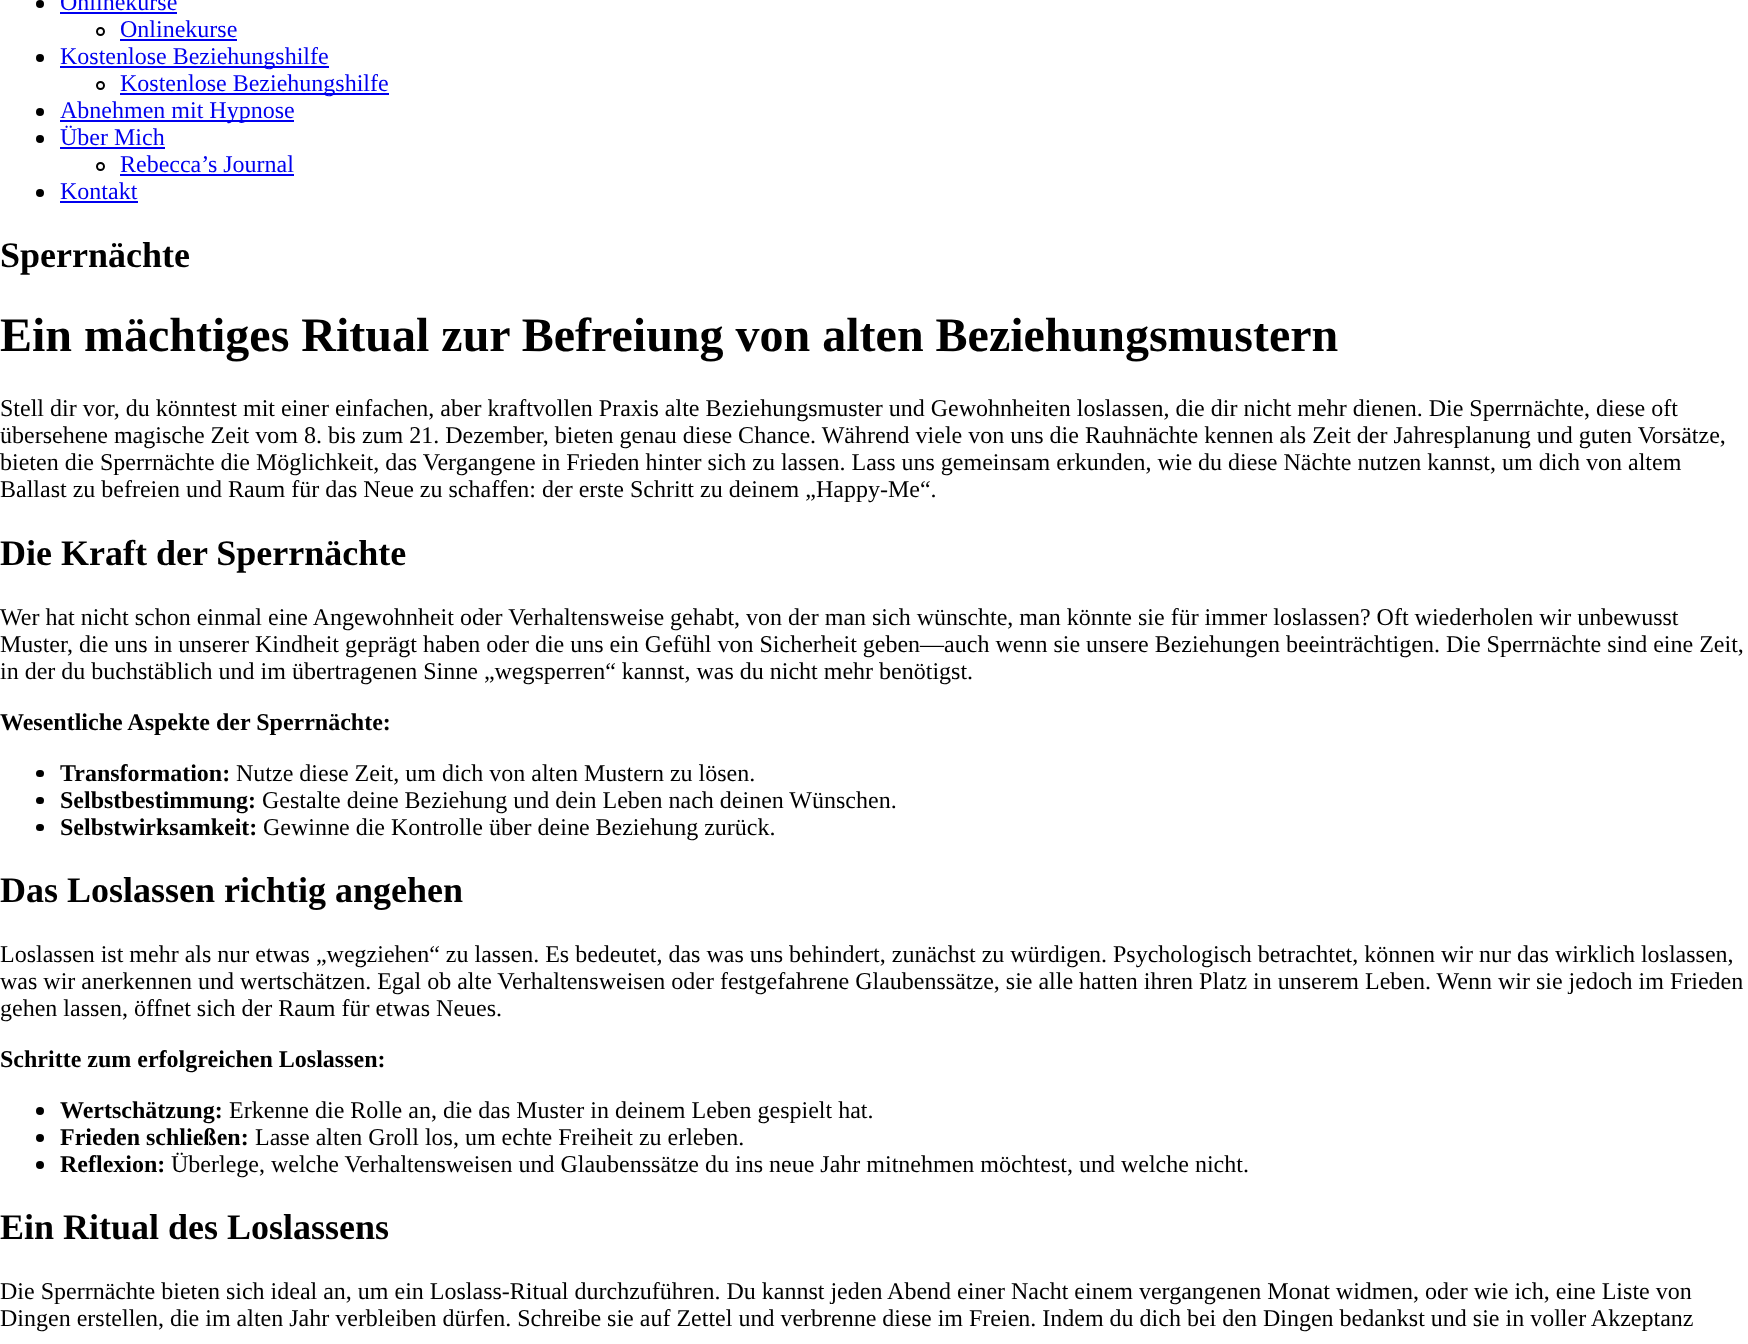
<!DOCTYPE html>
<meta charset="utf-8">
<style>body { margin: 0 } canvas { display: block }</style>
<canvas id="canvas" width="1748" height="1344"></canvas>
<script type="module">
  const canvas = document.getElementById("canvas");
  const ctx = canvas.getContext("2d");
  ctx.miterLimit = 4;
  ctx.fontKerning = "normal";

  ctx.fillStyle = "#ffffff";
  ctx.fillRect(0, 0, 1748, 1344);
  ctx.fillStyle = "#000000";
  ctx.beginPath();
  ctx.arc(40, 4, 4, 0, Math.PI * 2);
  ctx.fill();
  ctx.font = "24px Liberation Serif";
  ctx.fillStyle = "#0000ee";
  ctx.fillText("Onlinekurse", 60, 10);
  ctx.fillRect(60, 12, 117, 2);
  ctx.beginPath();
  ctx.arc(100.5, 31.5, 3.5, 0, Math.PI * 2);
  ctx.strokeStyle = "#000000";
  ctx.lineWidth = 2;
  ctx.stroke();
  ctx.fillText("Onlinekurse", 120, 37);
  ctx.fillRect(120, 39, 117, 2);
  ctx.fillStyle = "#000000";
  ctx.beginPath();
  ctx.arc(40, 58, 4, 0, Math.PI * 2);
  ctx.fill();
  ctx.fillStyle = "#0000ee";
  ctx.fillRect(60, 66, 269, 2);
  ctx.fillText("Kostenlose Beziehungshilfe", 60, 64);
  ctx.beginPath();
  ctx.arc(100.5, 85.5, 3.5, 0, Math.PI * 2);
  ctx.stroke();
  ctx.fillRect(120, 93, 269, 2);
  ctx.fillText("Kostenlose Beziehungshilfe", 120, 91);
  ctx.fillStyle = "#000000";
  ctx.beginPath();
  ctx.arc(40, 112, 4, 0, Math.PI * 2);
  ctx.fill();
  ctx.fillStyle = "#0000ee";
  ctx.fillRect(60, 120, 234, 2);
  ctx.fillText("Abnehmen mit Hypnose", 60, 118);
  ctx.fillStyle = "#000000";
  ctx.beginPath();
  ctx.arc(40, 139, 4, 0, Math.PI * 2);
  ctx.fill();
  ctx.fillStyle = "#0000ee";
  ctx.fillText("Über Mich", 60, 145);
  ctx.fillRect(60, 147, 105, 2);
  ctx.beginPath();
  ctx.arc(100.5, 166.5, 3.5, 0, Math.PI * 2);
  ctx.stroke();
  ctx.fillText("Rebecca’s Journal", 120, 172);
  ctx.fillRect(120, 174, 174, 2);
  ctx.fillStyle = "#000000";
  ctx.beginPath();
  ctx.arc(40, 193, 4, 0, Math.PI * 2);
  ctx.fill();
  ctx.fillStyle = "#0000ee";
  ctx.fillText("Kontakt", 60, 199);
  ctx.fillRect(60, 201, 78, 2);
  ctx.font = "bold 36px Liberation Serif";
  ctx.fillStyle = "#000000";
  ctx.fillText("Sperrnächte", 0, 267);
  ctx.font = "bold 48px Liberation Serif";
  ctx.fillText("Ein mächtiges Ritual zur Befreiung von alten Beziehungsmustern", 0, 351);
  ctx.font = "24px Liberation Serif";
  ctx.fillText("Stell dir vor, du könntest mit einer einfachen, aber kraftvollen Praxis alte Beziehungsmuster und Gewohnheiten loslassen, die dir nicht mehr dienen. Die Sperrnächte, diese oft", 0, 416);
  ctx.fillText("übersehene magische Zeit vom 8. bis zum 21. Dezember, bieten genau diese Chance. Während viele von uns die Rauhnächte kennen als Zeit der Jahresplanung und guten Vorsätze,", 0, 443);
  ctx.fillText("bieten die Sperrnächte die Möglichkeit, das Vergangene in Frieden hinter sich zu lassen. Lass uns gemeinsam erkunden, wie du diese Nächte nutzen kannst, um dich von altem", 0, 470);
  ctx.fillText("Ballast zu befreien und Raum für das Neue zu schaffen: der erste Schritt zu deinem „Happy-Me“.", 0, 497);
  ctx.font = "bold 36px Liberation Serif";
  ctx.fillText("Die Kraft der Sperrnächte", 0, 565);
  ctx.font = "24px Liberation Serif";
  ctx.fillText("Wer hat nicht schon einmal eine Angewohnheit oder Verhaltensweise gehabt, von der man sich wünschte, man könnte sie für immer loslassen? Oft wiederholen wir unbewusst", 0, 625);
  ctx.fillText("Muster, die uns in unserer Kindheit geprägt haben oder die uns ein Gefühl von Sicherheit geben—auch wenn sie unsere Beziehungen beeinträchtigen. Die Sperrnächte sind eine Zeit,", 0, 652);
  ctx.fillText("in der du buchstäblich und im übertragenen Sinne „wegsperren“ kannst, was du nicht mehr benötigst.", 0, 679);
  ctx.font = "bold 24px Liberation Serif";
  ctx.fillText("Wesentliche Aspekte der Sperrnächte:", 0, 730);
  ctx.beginPath();
  ctx.roundRect(36, 770, 8, 7, 3.5);
  ctx.fill();
  ctx.fillText("Transformation:", 60, 781);
  ctx.font = "24px Liberation Serif";
  ctx.fillText("Nutze diese Zeit, um dich von alten Mustern zu lösen.", 236, 781);
  ctx.beginPath();
  ctx.roundRect(36, 797, 8, 7, 3.5);
  ctx.fill();
  ctx.font = "bold 24px Liberation Serif";
  ctx.fillText("Selbstbestimmung:", 60, 808);
  ctx.font = "24px Liberation Serif";
  ctx.fillText("Gestalte deine Beziehung und dein Leben nach deinen Wünschen.", 262, 808);
  ctx.beginPath();
  ctx.roundRect(36, 824, 8, 7, 3.5);
  ctx.fill();
  ctx.font = "bold 24px Liberation Serif";
  ctx.fillText("Selbstwirksamkeit:", 60, 835);
  ctx.font = "24px Liberation Serif";
  ctx.fillText("Gewinne die Kontrolle über deine Beziehung zurück.", 263, 835);
  ctx.font = "bold 36px Liberation Serif";
  ctx.fillText("Das Loslassen richtig angehen", 0, 902);
  ctx.font = "24px Liberation Serif";
  ctx.fillText("Loslassen ist mehr als nur etwas „wegziehen“ zu lassen. Es bedeutet, das was uns behindert, zunächst zu würdigen. Psychologisch betrachtet, können wir nur das wirklich loslassen,", 0, 962);
  ctx.fillText("was wir anerkennen und wertschätzen. Egal ob alte Verhaltensweisen oder festgefahrene Glaubenssätze, sie alle hatten ihren Platz in unserem Leben. Wenn wir sie jedoch im Frieden", 0, 989);
  ctx.fillText("gehen lassen, öffnet sich der Raum für etwas Neues.", 0, 1016);
  ctx.font = "bold 24px Liberation Serif";
  ctx.fillText("Schritte zum erfolgreichen Loslassen:", 0, 1067);
  ctx.beginPath();
  ctx.arc(40, 1111, 4, 0, Math.PI * 2);
  ctx.fill();
  ctx.fillText("Wertschätzung:", 60, 1118);
  ctx.font = "24px Liberation Serif";
  ctx.fillText("Erkenne die Rolle an, die das Muster in deinem Leben gespielt hat.", 229, 1118);
  ctx.beginPath();
  ctx.arc(40, 1138, 4, 0, Math.PI * 2);
  ctx.fill();
  ctx.font = "bold 24px Liberation Serif";
  ctx.fillText("Frieden schließen:", 60, 1145);
  ctx.font = "24px Liberation Serif";
  ctx.fillText("Lasse alten Groll los, um echte Freiheit zu erleben.", 255, 1145);
  ctx.beginPath();
  ctx.arc(40, 1165, 4, 0, Math.PI * 2);
  ctx.fill();
  ctx.font = "bold 24px Liberation Serif";
  ctx.fillText("Reflexion:", 60, 1172);
  ctx.font = "24px Liberation Serif";
  ctx.fillText("Überlege, welche Verhaltensweisen und Glaubenssätze du ins neue Jahr mitnehmen möchtest, und welche nicht.", 171, 1172);
  ctx.font = "bold 36px Liberation Serif";
  ctx.fillText("Ein Ritual des Loslassens", 0, 1239);
  ctx.font = "24px Liberation Serif";
  ctx.fillText("Die Sperrnächte bieten sich ideal an, um ein Loslass-Ritual durchzuführen. Du kannst jeden Abend einer Nacht einem vergangenen Monat widmen, oder wie ich, eine Liste von", 0, 1299);
  ctx.fillText("Dingen erstellen, die im alten Jahr verbleiben dürfen. Schreibe sie auf Zettel und verbrenne diese im Freien. Indem du dich bei den Dingen bedankst und sie in voller Akzeptanz", 0, 1326);
</script>
